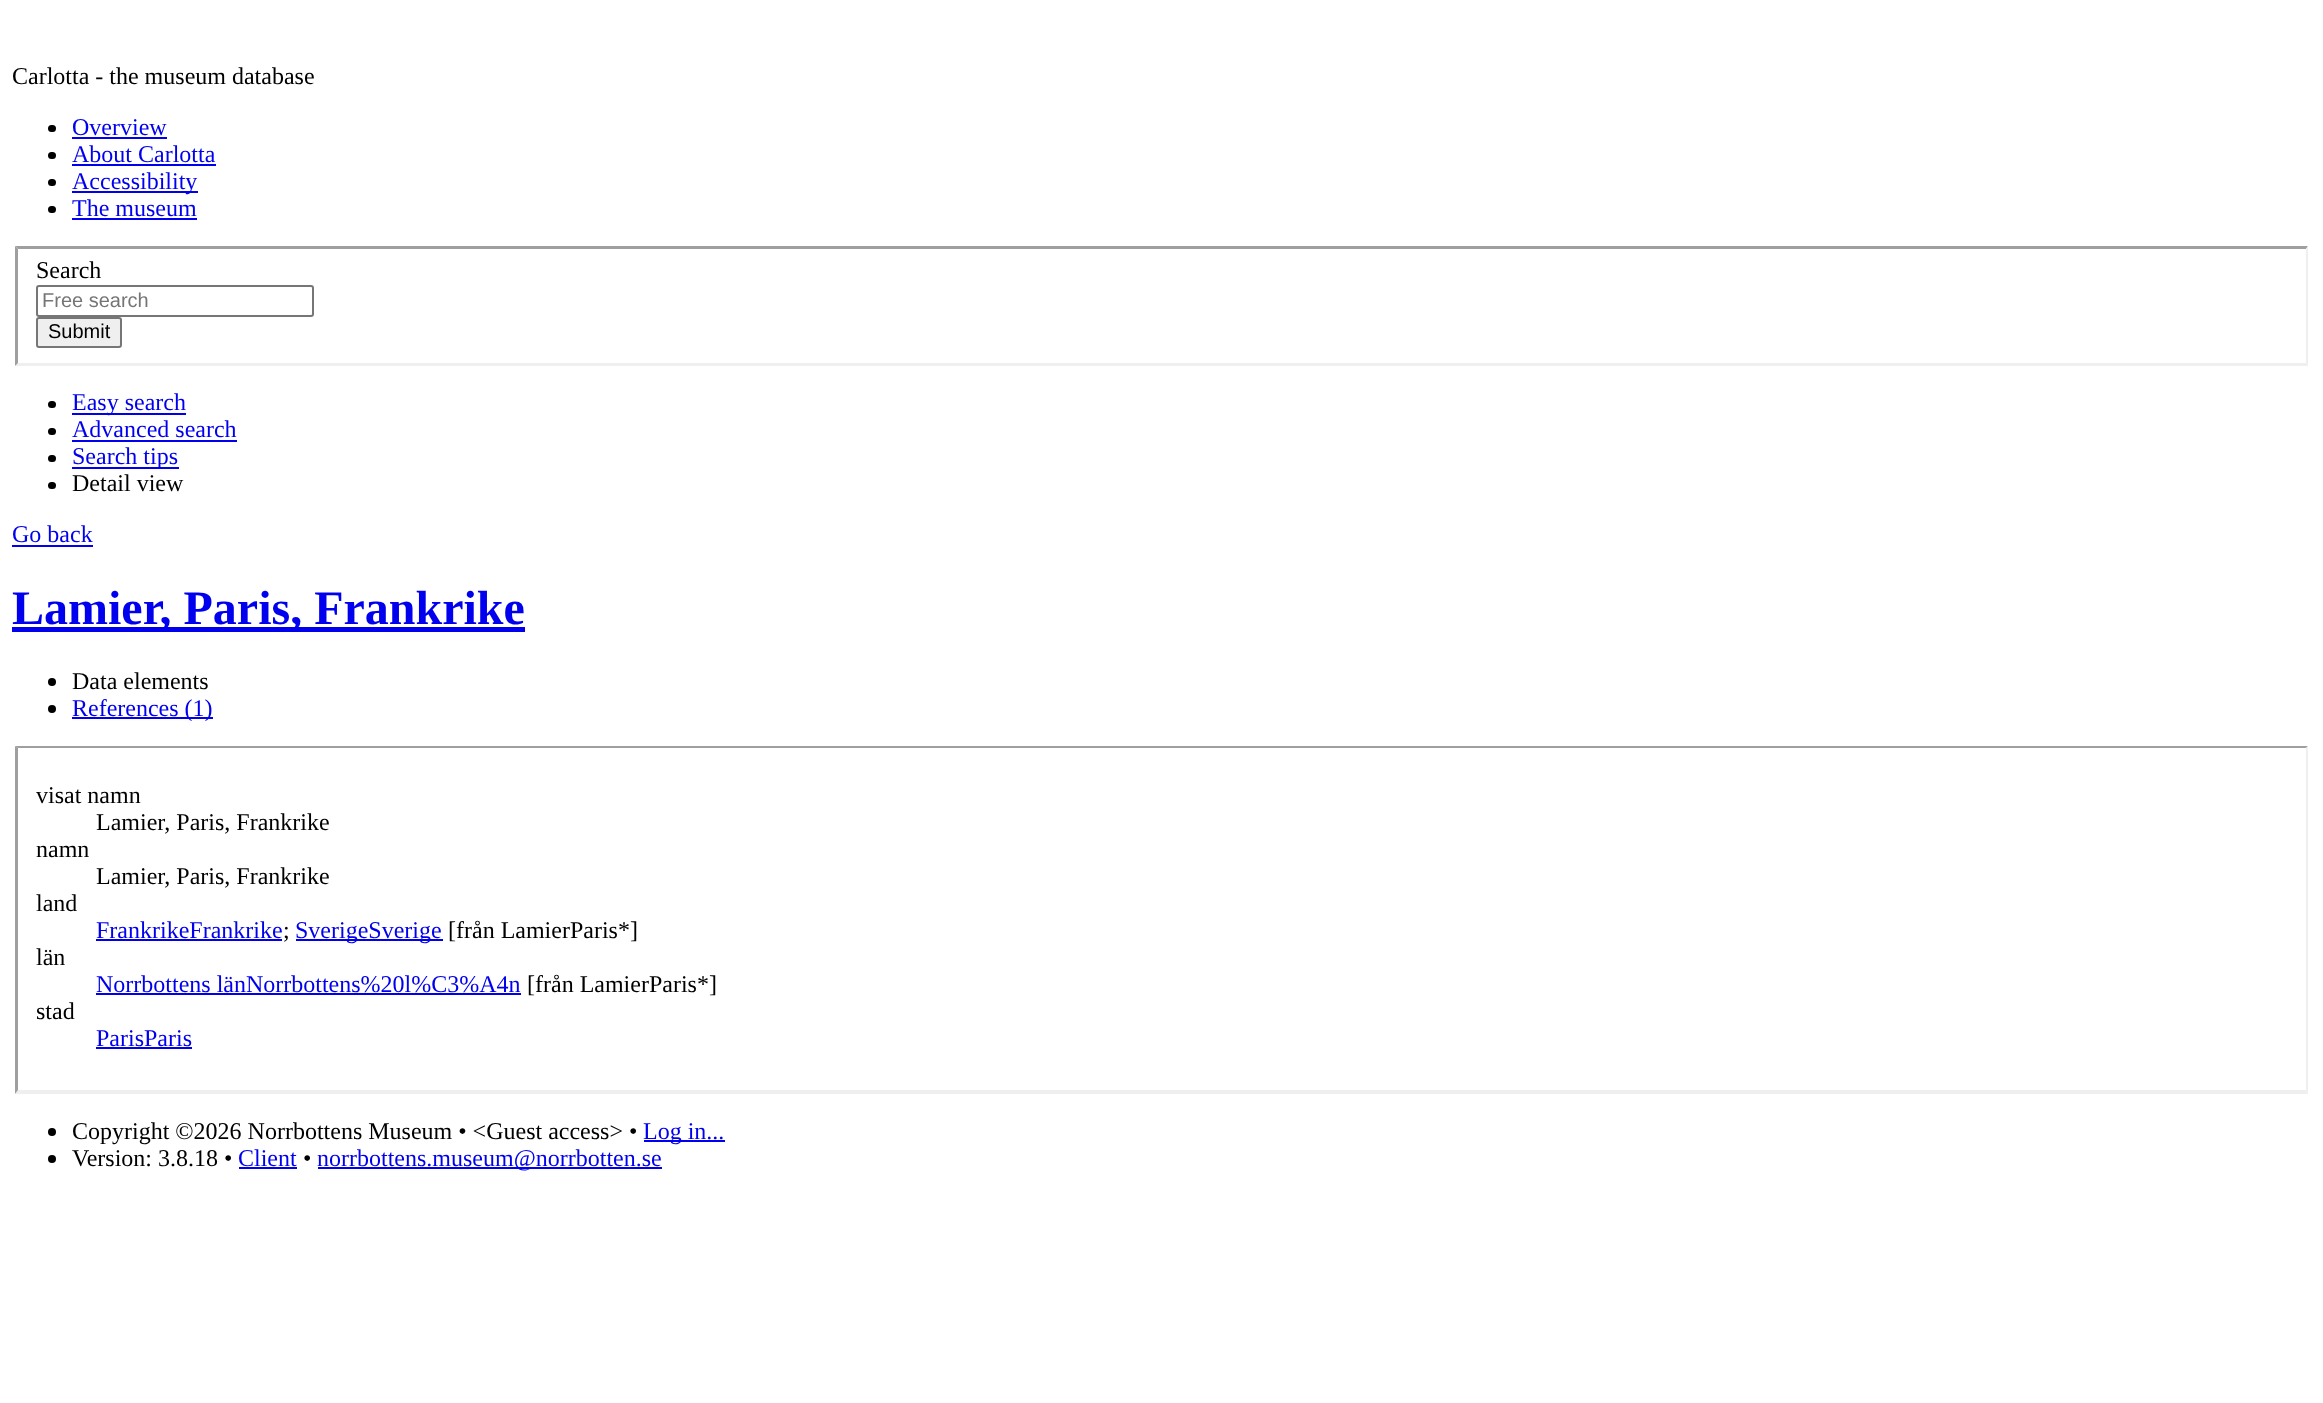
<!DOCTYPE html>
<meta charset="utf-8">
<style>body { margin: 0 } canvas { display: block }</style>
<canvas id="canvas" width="2323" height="1403"></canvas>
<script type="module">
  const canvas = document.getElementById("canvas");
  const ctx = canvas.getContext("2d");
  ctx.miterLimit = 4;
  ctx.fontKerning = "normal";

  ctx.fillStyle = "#ffffff";
  ctx.fillRect(0, 0, 2323, 1403);
  ctx.font = "24px Liberation Serif";
  ctx.fillStyle = "#000000";
  ctx.fillText("Carlotta - the museum database", 12, 84);
  ctx.beginPath();
  ctx.roundRect(48, 125, 8, 7, 3.5);
  ctx.fill();
  ctx.fillStyle = "#0000ee";
  ctx.fillText("Overview", 72, 135);
  ctx.fillRect(72, 137, 95, 2);
  ctx.fillStyle = "#000000";
  ctx.beginPath();
  ctx.roundRect(48, 152, 8, 7, 3.5);
  ctx.fill();
  ctx.fillStyle = "#0000ee";
  ctx.fillText("About Carlotta", 72, 162);
  ctx.fillRect(72, 164, 144, 2);
  ctx.fillStyle = "#000000";
  ctx.beginPath();
  ctx.roundRect(48, 179, 8, 7, 3.5);
  ctx.fill();
  ctx.fillStyle = "#0000ee";
  ctx.fillRect(72, 191, 126, 2);
  ctx.fillText("Accessibility", 72, 189);
  ctx.fillStyle = "#000000";
  ctx.beginPath();
  ctx.roundRect(48, 206, 8, 7, 3.5);
  ctx.fill();
  ctx.fillStyle = "#0000ee";
  ctx.fillText("The museum", 72, 216);
  ctx.fillRect(72, 218, 125, 2);
  ctx.fillStyle = "#9f9f9f";
  ctx.beginPath();
  ctx.moveTo(15, 246);
  ctx.lineTo(2308, 246);
  ctx.lineTo(2306, 249);
  ctx.lineTo(18, 249);
  ctx.closePath();
  ctx.fill();
  ctx.fillStyle = "#efefef";
  ctx.beginPath();
  ctx.moveTo(2308, 246);
  ctx.lineTo(2308, 366);
  ctx.lineTo(2306, 363);
  ctx.lineTo(2306, 249);
  ctx.closePath();
  ctx.fill();
  ctx.beginPath();
  ctx.moveTo(2308, 366);
  ctx.lineTo(15, 366);
  ctx.lineTo(18, 363);
  ctx.lineTo(2306, 363);
  ctx.closePath();
  ctx.fill();
  ctx.fillStyle = "#9f9f9f";
  ctx.beginPath();
  ctx.moveTo(15, 366);
  ctx.lineTo(15, 246);
  ctx.lineTo(18, 249);
  ctx.lineTo(18, 363);
  ctx.closePath();
  ctx.fill();
  ctx.fillStyle = "#000000";
  ctx.fillText("Search", 36, 278);
  ctx.beginPath();
  ctx.roundRect(37, 286, 276, 30, 2);
  ctx.strokeStyle = "#767676";
  ctx.lineWidth = 2;
  ctx.stroke();
  ctx.font = "20px Liberation Sans";
  ctx.fillStyle = "#757575";
  ctx.fillText("Free search", 42, 307);
  ctx.fillStyle = "#efefef";
  ctx.beginPath();
  ctx.roundRect(37, 318, 84, 29, 2);
  ctx.fill();
  ctx.stroke();
  ctx.fillStyle = "#000000";
  ctx.fillText("Submit", 48, 338);
  ctx.beginPath();
  ctx.roundRect(48, 401, 8, 7, 3.5);
  ctx.fill();
  ctx.fillStyle = "#0000ee";
  ctx.fillRect(72, 413, 114, 2);
  ctx.font = "24px Liberation Serif";
  ctx.fillText("Easy search", 72, 410);
  ctx.fillStyle = "#000000";
  ctx.beginPath();
  ctx.roundRect(48, 428, 8, 7, 3.5);
  ctx.fill();
  ctx.fillStyle = "#0000ee";
  ctx.fillText("Advanced search", 72, 437);
  ctx.fillRect(72, 440, 165, 2);
  ctx.fillStyle = "#000000";
  ctx.beginPath();
  ctx.roundRect(48, 455, 8, 7, 3.5);
  ctx.fill();
  ctx.fillStyle = "#0000ee";
  ctx.fillRect(72, 467, 107, 2);
  ctx.fillText("Search tips", 72, 464);
  ctx.fillStyle = "#000000";
  ctx.beginPath();
  ctx.roundRect(48, 482, 8, 7, 3.5);
  ctx.fill();
  ctx.fillText("Detail view", 72, 491);
  ctx.fillStyle = "#0000ee";
  ctx.fillText("Go back", 12, 542);
  ctx.fillRect(12, 545, 81, 2);
  ctx.fillRect(12, 627, 513, 5);
  ctx.font = "bold 48px Liberation Serif";
  ctx.fillText("Lamier, Paris, Frankrike", 12, 624);
  ctx.fillStyle = "#000000";
  ctx.beginPath();
  ctx.arc(52, 682, 4, 0, Math.PI * 2);
  ctx.fill();
  ctx.font = "24px Liberation Serif";
  ctx.fillText("Data elements", 72, 689);
  ctx.beginPath();
  ctx.arc(52, 709, 4, 0, Math.PI * 2);
  ctx.fill();
  ctx.fillStyle = "#0000ee";
  ctx.fillRect(72, 717, 141, 2);
  ctx.fillText("References (1)", 72, 716);
  ctx.fillStyle = "#9f9f9f";
  ctx.beginPath();
  ctx.moveTo(15, 746);
  ctx.lineTo(2308, 746);
  ctx.lineTo(2306, 748);
  ctx.lineTo(18, 748);
  ctx.closePath();
  ctx.fill();
  ctx.fillStyle = "#efefef";
  ctx.beginPath();
  ctx.moveTo(2308, 746);
  ctx.lineTo(2308, 1094);
  ctx.lineTo(2306, 1090);
  ctx.lineTo(2306, 748);
  ctx.closePath();
  ctx.fill();
  ctx.beginPath();
  ctx.moveTo(2308, 1094);
  ctx.lineTo(15, 1094);
  ctx.lineTo(18, 1090);
  ctx.lineTo(2306, 1090);
  ctx.closePath();
  ctx.fill();
  ctx.fillStyle = "#9f9f9f";
  ctx.beginPath();
  ctx.moveTo(15, 1094);
  ctx.lineTo(15, 746);
  ctx.lineTo(18, 748);
  ctx.lineTo(18, 1090);
  ctx.closePath();
  ctx.fill();
  ctx.fillStyle = "#000000";
  ctx.fillText("visat namn", 36, 803);
  ctx.fillText("Lamier, Paris, Frankrike", 96, 830);
  ctx.fillText("namn", 36, 857);
  ctx.fillText("Lamier, Paris, Frankrike", 96, 884);
  ctx.fillText("land", 36, 911);
  ctx.fillStyle = "#0000ee";
  ctx.fillText("FrankrikeFrankrike", 96, 938);
  ctx.fillRect(96, 939, 186, 2);
  ctx.fillStyle = "#000000";
  ctx.fillText(";", 283, 938);
  ctx.fillStyle = "#0000ee";
  ctx.fillRect(296, 939, 147, 2);
  ctx.fillText("SverigeSverige", 295, 938);
  ctx.fillStyle = "#000000";
  ctx.fillText("[från LamierParis*]", 448, 938);
  ctx.fillText("län", 36, 965);
  ctx.fillStyle = "#0000ee";
  ctx.fillText("Norrbottens länNorrbottens%20l%C3%A4n", 96, 992);
  ctx.fillRect(96, 993, 425, 2);
  ctx.fillStyle = "#000000";
  ctx.fillText("[från LamierParis*]", 527, 992);
  ctx.fillText("stad", 36, 1019);
  ctx.fillStyle = "#0000ee";
  ctx.fillText("ParisParis", 96, 1046);
  ctx.fillRect(96, 1047, 96, 2);
  ctx.fillStyle = "#000000";
  ctx.beginPath();
  ctx.arc(52, 1132, 4, 0, Math.PI * 2);
  ctx.fill();
  ctx.fillText("Copyright ©2026 Norrbottens Museum • <Guest access> •", 72, 1139);
  ctx.fillStyle = "#0000ee";
  ctx.fillRect(644, 1140, 81, 2);
  ctx.fillText("Log in...", 643, 1139);
  ctx.fillStyle = "#000000";
  ctx.beginPath();
  ctx.arc(52, 1159, 4, 0, Math.PI * 2);
  ctx.fill();
  ctx.fillText("Version: 3.8.18 •", 72, 1166);
  ctx.fillStyle = "#0000ee";
  ctx.fillText("Client", 238, 1166);
  ctx.fillRect(239, 1167, 58, 2);
  ctx.fillStyle = "#000000";
  ctx.fillText("•", 303, 1166);
  ctx.fillStyle = "#0000ee";
  ctx.fillRect(318, 1167, 344, 2);
  ctx.fillText("norrbottens.museum@norrbotten.se", 317, 1166);
</script>
